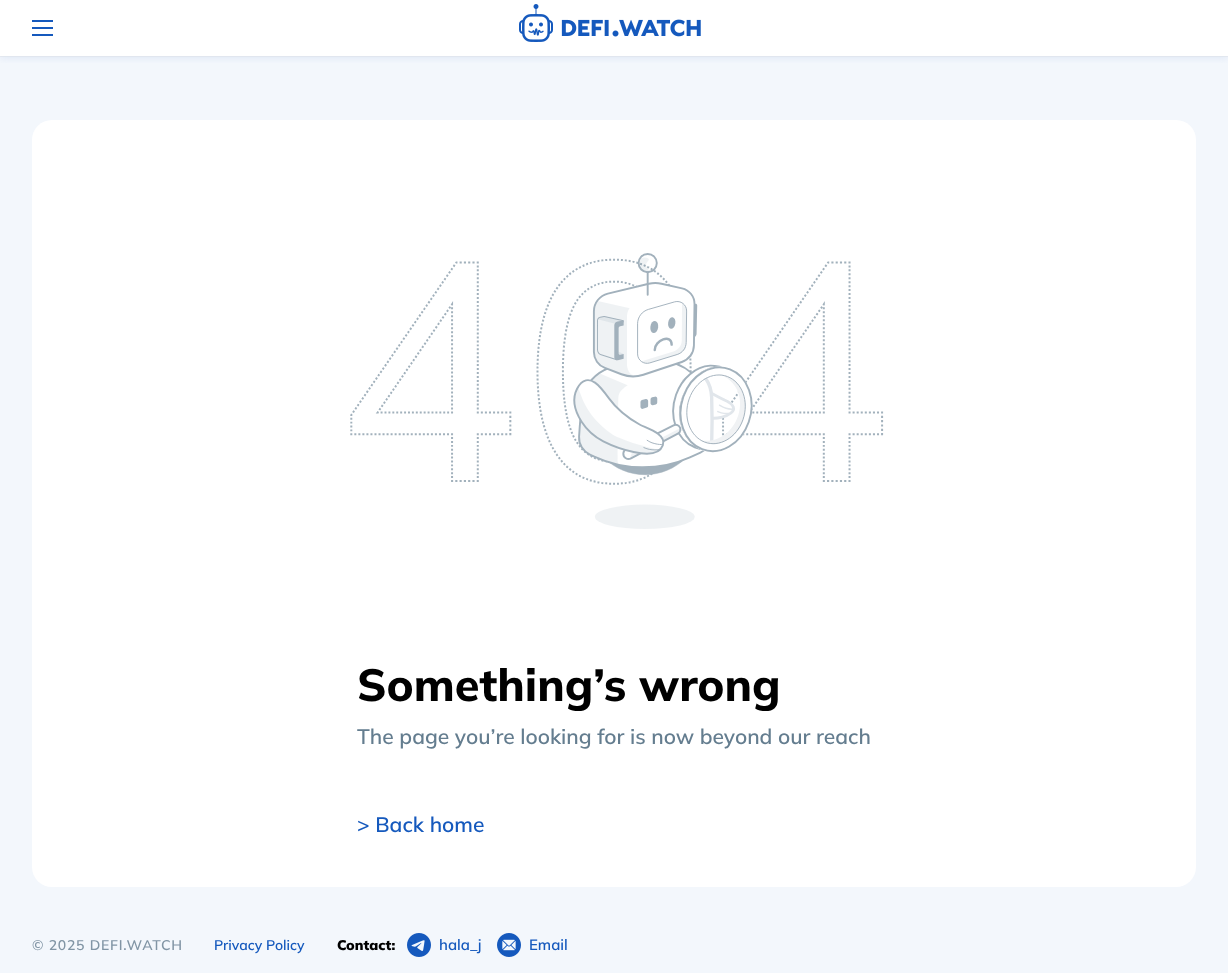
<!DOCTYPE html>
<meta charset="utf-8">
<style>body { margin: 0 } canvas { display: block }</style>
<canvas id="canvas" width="1228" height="973"></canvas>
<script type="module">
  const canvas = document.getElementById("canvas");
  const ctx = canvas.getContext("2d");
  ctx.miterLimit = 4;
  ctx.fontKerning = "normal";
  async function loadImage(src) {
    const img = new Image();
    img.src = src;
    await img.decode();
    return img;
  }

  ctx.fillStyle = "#ffffff";
  ctx.fillRect(0, 0, 1228, 973);
  ctx.fillStyle = "#f3f7fc";
  ctx.fillRect(0, 56, 1228, 917);
  ctx.save();
  ctx.beginPath();
  ctx.rect(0, 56, 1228, 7);
  ctx.clip();
  ctx.fillStyle = "rgba(161, 184, 230, 0.3)";
  ctx.filter = "blur(4px)";
  ctx.beginPath();
  ctx.rect(0, 1, 1228, 56);
  ctx.fill();
  ctx.filter = "none";
  ctx.restore();
  ctx.fillStyle = "rgba(220, 223, 229, 0.5)";
  ctx.fillRect(0, 56, 1228, 1);
  ctx.fillStyle = "#1559bd";
  ctx.fillRect(32, 20, 21, 2);
  ctx.fillRect(32, 27, 21, 2);
  ctx.fillRect(32, 34, 21, 2);
  ctx.drawImage(await loadImage("img1.png"), 519, 4, 182, 38);
  ctx.fillStyle = "#ffffff";
  ctx.beginPath();
  ctx.roundRect(32, 120, 1164, 767, 20);
  ctx.fill();
  ctx.drawImage(await loadImage("img2.png"), 350, 253, 534, 276);
  ctx.font = "800 45px Mulish";
  ctx.fillStyle = "#000000";
  ctx.fillText("Something’s wrong", 357, 701);
  ctx.font = "600 21px Mulish";
  ctx.fillStyle = "#647d8f";
  ctx.fillText("The page you’re looking for is now beyond our reach", 357, 744);
  ctx.fillStyle = "#1559bd";
  ctx.fillText("> Back home", 357, 832);
  ctx.letterSpacing = "0.75px";
  ctx.font = "600 14px Mulish";
  ctx.fillStyle = "#8195a5";
  ctx.fillText("© 2025 DEFI.WATCH", 32, 950);
  ctx.letterSpacing = "0px";
  ctx.fillStyle = "#1559bd";
  ctx.fillText("Privacy Policy", 214, 950);
  ctx.font = "900 14px Mulish";
  ctx.fillStyle = "#000000";
  ctx.fillText("Contact:", 337, 950);
  ctx.drawImage(await loadImage("img3.png"), 407, 933, 24, 24);
  ctx.font = "600 15px Mulish";
  ctx.fillStyle = "#1559bd";
  ctx.fillText("hala_j", 439, 950);
  ctx.drawImage(await loadImage("img4.png"), 497, 933, 24, 24);
  ctx.fillText("Email", 529, 950);
</script>
